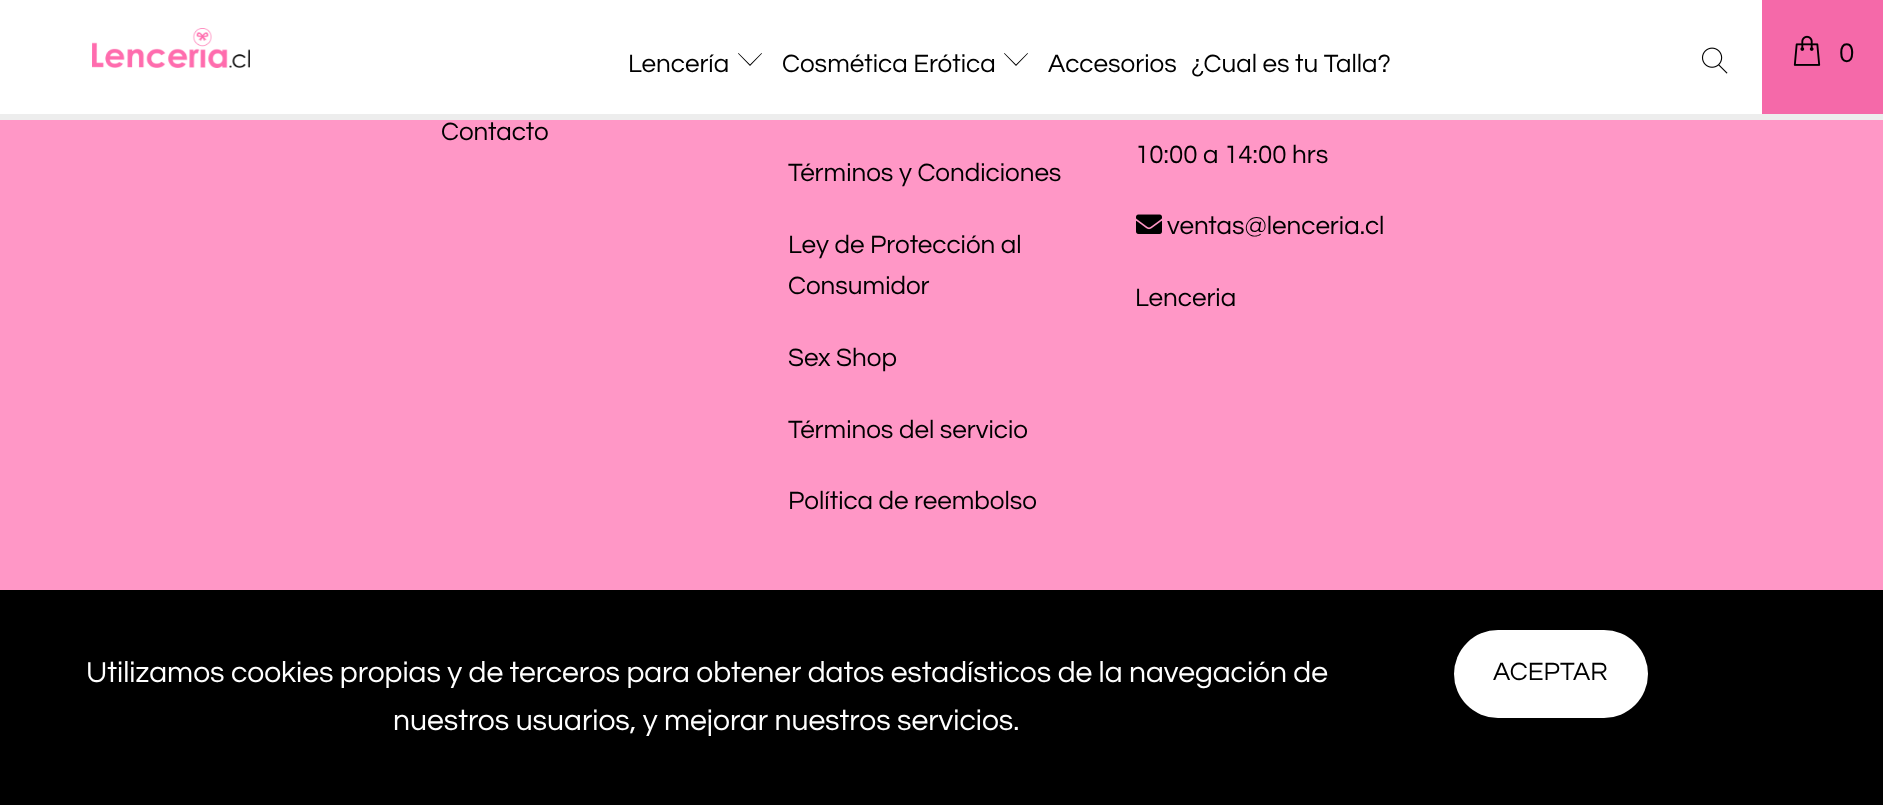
<!DOCTYPE html>
<meta charset="utf-8">
<style>body { margin: 0 } canvas { display: block }</style>
<canvas id="canvas" width="1883" height="805"></canvas>
<script type="module">
  const canvas = document.getElementById("canvas");
  const ctx = canvas.getContext("2d");
  ctx.miterLimit = 4;
  ctx.fontKerning = "normal";
  async function loadImage(src) {
    const img = new Image();
    img.src = src;
    await img.decode();
    return img;
  }

  ctx.fillStyle = "#ff97c6";
  ctx.fillRect(0, 0, 1883, 805);
  ctx.fillStyle = "#ffffff";
  ctx.fillRect(0, 0, 1762, 114);
  ctx.fillStyle = "#ededed";
  ctx.fillRect(0, 114, 1883, 6);
  ctx.drawImage(await loadImage("img1.png"), 92, 28, 158, 40);
  ctx.font = "26px Questrial";
  ctx.fillStyle = "#000000";
  ctx.fillText("Lencería", 628, 72);
  ctx.beginPath();
  ctx.moveTo(750, 66);
  ctx.lineTo(738, 53.5);
  ctx.lineTo(738.5, 53);
  ctx.lineTo(750, 64.5);
  ctx.lineTo(761.5, 53);
  ctx.lineTo(762, 53.5);
  ctx.closePath();
  ctx.fill();
  ctx.fillText("Cosmética Erótica", 782, 72);
  ctx.beginPath();
  ctx.moveTo(1016, 66);
  ctx.lineTo(1004, 53.5);
  ctx.lineTo(1004.5, 53);
  ctx.lineTo(1016, 64.5);
  ctx.lineTo(1027.5, 53);
  ctx.lineTo(1028, 53.5);
  ctx.closePath();
  ctx.fill();
  ctx.fillText("Accesorios", 1048, 72);
  ctx.fillText("¿Cual es tu Talla?", 1191, 72);
  ctx.drawImage(await loadImage("img2.png"), 1701, 47, 27, 27);
  ctx.fillStyle = "#f569a9";
  ctx.fillRect(1762, 0, 121, 114);
  ctx.drawImage(await loadImage("img3.png"), 1793, 35, 28, 31);
  ctx.font = "28px Questrial";
  ctx.fillStyle = "#000000";
  ctx.fillText("0", 1839, 62);
  ctx.font = "26px Questrial";
  ctx.fillText("Contacto", 441, 140);
  ctx.fillText("Términos y Condiciones", 788, 181);
  ctx.fillText("Ley de Protección al", 788, 253);
  ctx.fillText("Consumidor", 788, 294);
  ctx.fillText("Sex Shop", 788, 366);
  ctx.fillText("Términos del servicio", 788, 438);
  ctx.fillText("Política de reembolso", 788, 509);
  ctx.fillText("10:00 a 14:00 hrs", 1135, 163);
  ctx.drawImage(await loadImage("img4.png"), 1136, 214, 26, 20);
  ctx.fillText("ventas@lenceria.cl", 1167, 234);
  ctx.fillText("Lenceria", 1135, 306);
  ctx.fillRect(0, 590, 1883, 215);
  ctx.font = "30px Questrial";
  ctx.fillStyle = "#ffffff";
  ctx.fillText("Utilizamos cookies propias y de terceros para obtener datos estadísticos de la navegación de", 86, 682);
  ctx.fillText("nuestros usuarios, y mejorar nuestros servicios.", 393, 730);
  ctx.beginPath();
  ctx.roundRect(1454, 630, 194, 88, 44);
  ctx.fill();
  ctx.font = "26px Questrial";
  ctx.fillStyle = "#000000";
  ctx.fillText("ACEPTAR", 1493, 680);
</script>
